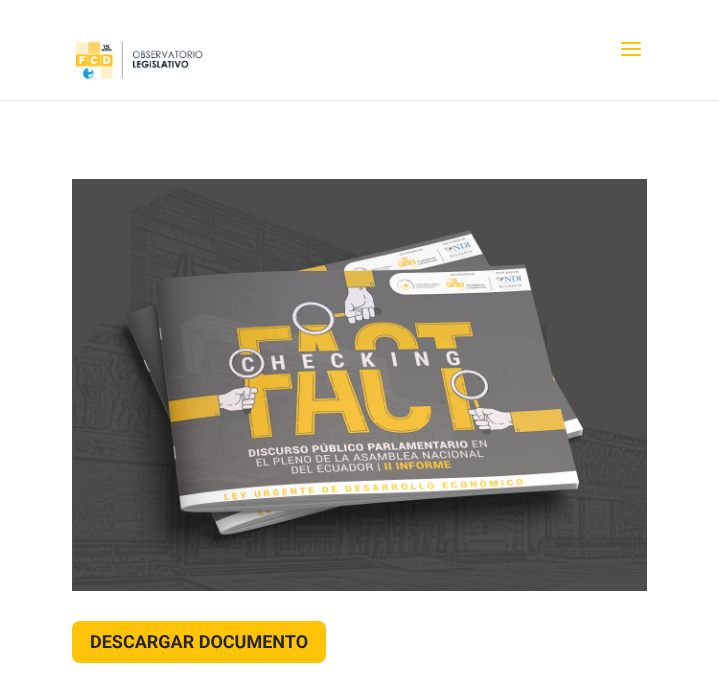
<!DOCTYPE html>
<meta charset="utf-8">
<style>body { margin: 0 } canvas { display: block }</style>
<canvas id="canvas" width="719" height="692"></canvas>
<script type="module">
  const canvas = document.getElementById("canvas");
  const ctx = canvas.getContext("2d");
  ctx.miterLimit = 4;
  ctx.fontKerning = "normal";
  async function loadImage(src) {
    const img = new Image();
    img.src = src;
    await img.decode();
    return img;
  }

  ctx.fillStyle = "#ffffff";
  ctx.fillRect(0, 0, 719, 692);
  ctx.fillStyle = "#e6e6e6";
  ctx.fillRect(0, 100, 719, 1);
  ctx.drawImage(await loadImage("img1.png"), 75, 41, 128, 39);
  ctx.drawImage(await loadImage("img2.png"), 621, 42, 20, 14);
  ctx.drawImage(await loadImage("img3.png"), 72, 179, 575, 412);
  ctx.fillStyle = "#ffc307";
  ctx.beginPath();
  ctx.roundRect(72, 621, 254, 42, 8);
  ctx.fill();
  ctx.font = "bold 18px Roboto";
  ctx.fillStyle = "#262626";
  ctx.fillText("DESCARGAR DOCUMENTO", 90, 648);
</script>
